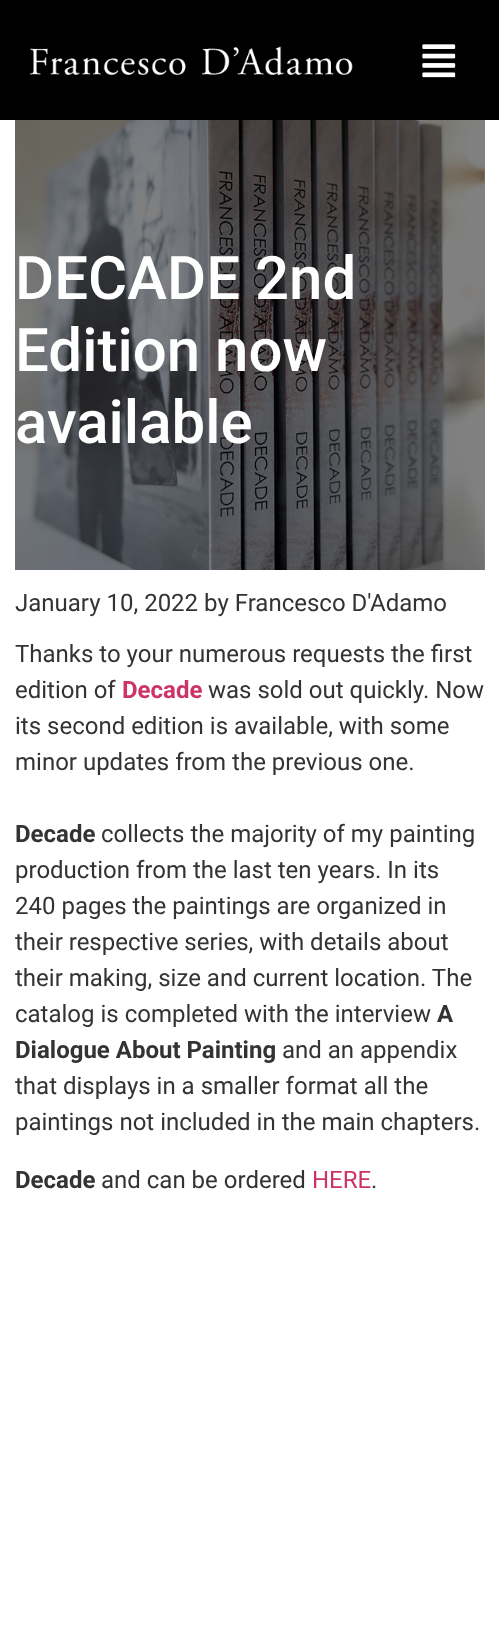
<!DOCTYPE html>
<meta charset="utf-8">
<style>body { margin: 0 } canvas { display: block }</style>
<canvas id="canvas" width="499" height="1648"></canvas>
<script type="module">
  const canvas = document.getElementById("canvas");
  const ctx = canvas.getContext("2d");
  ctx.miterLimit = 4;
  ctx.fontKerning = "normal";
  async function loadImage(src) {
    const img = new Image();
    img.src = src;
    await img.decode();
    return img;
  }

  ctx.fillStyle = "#ffffff";
  ctx.fillRect(0, 0, 499, 1648);
  ctx.fillStyle = "#808080";
  ctx.fillRect(484, 120, 1, 450);
  ctx.fillStyle = "#000000";
  ctx.fillRect(0, 0, 499, 120);
  ctx.drawImage(await loadImage("img1.png"), 30, 46, 323, 29);
  ctx.drawImage(await loadImage("img2.png"), 422, 44, 34, 34);
  ctx.drawImage(await loadImage("img3.png"), 15, 120, 470, 450);
  ctx.font = "500 60px Roboto";
  ctx.fillStyle = "#ffffff";
  ctx.fillText("DECADE 2nd", 15, 299);
  ctx.fillText("Edition now", 15, 371);
  ctx.fillText("available", 15, 443);
  ctx.font = "24px Roboto";
  ctx.fillStyle = "#333333";
  ctx.fillText("January 10, 2022 by Francesco D'Adamo", 15, 611);
  ctx.fillText("Thanks to your numerous requests the first", 15, 662);
  ctx.fillText("edition of", 15, 698);
  ctx.font = "bold 24px Roboto";
  ctx.fillStyle = "#cc3366";
  ctx.fillText("Decade", 122, 698);
  ctx.font = "24px Roboto";
  ctx.fillStyle = "#333333";
  ctx.fillText("was sold out quickly. Now", 208, 698);
  ctx.fillText("its second edition is available, with some", 15, 734);
  ctx.fillText("minor updates from the previous one.", 15, 770);
  ctx.font = "bold 24px Roboto";
  ctx.fillText("Decade", 15, 842);
  ctx.font = "24px Roboto";
  ctx.fillText("collects the majority of my painting", 101, 842);
  ctx.fillText("production from the last ten years. In its", 15, 878);
  ctx.fillText("240 pages the paintings are organized in", 15, 914);
  ctx.fillText("their respective series, with details about", 15, 950);
  ctx.fillText("their making, size and current location. The", 15, 986);
  ctx.fillText("catalog is completed with the interview", 15, 1022);
  ctx.font = "bold 24px Roboto";
  ctx.fillText("A", 437, 1022);
  ctx.fillText("Dialogue About Painting", 15, 1058);
  ctx.font = "24px Roboto";
  ctx.fillText("and an appendix", 282, 1058);
  ctx.fillText("that displays in a smaller format all the", 15, 1094);
  ctx.fillText("paintings not included in the main chapters.", 15, 1130);
  ctx.font = "bold 24px Roboto";
  ctx.fillText("Decade", 15, 1188);
  ctx.font = "24px Roboto";
  ctx.fillText("and can be ordered", 101, 1188);
  ctx.fillStyle = "#cc3366";
  ctx.fillText("HERE", 312, 1188);
  ctx.fillStyle = "#333333";
  ctx.fillText(".", 371, 1188);
</script>
